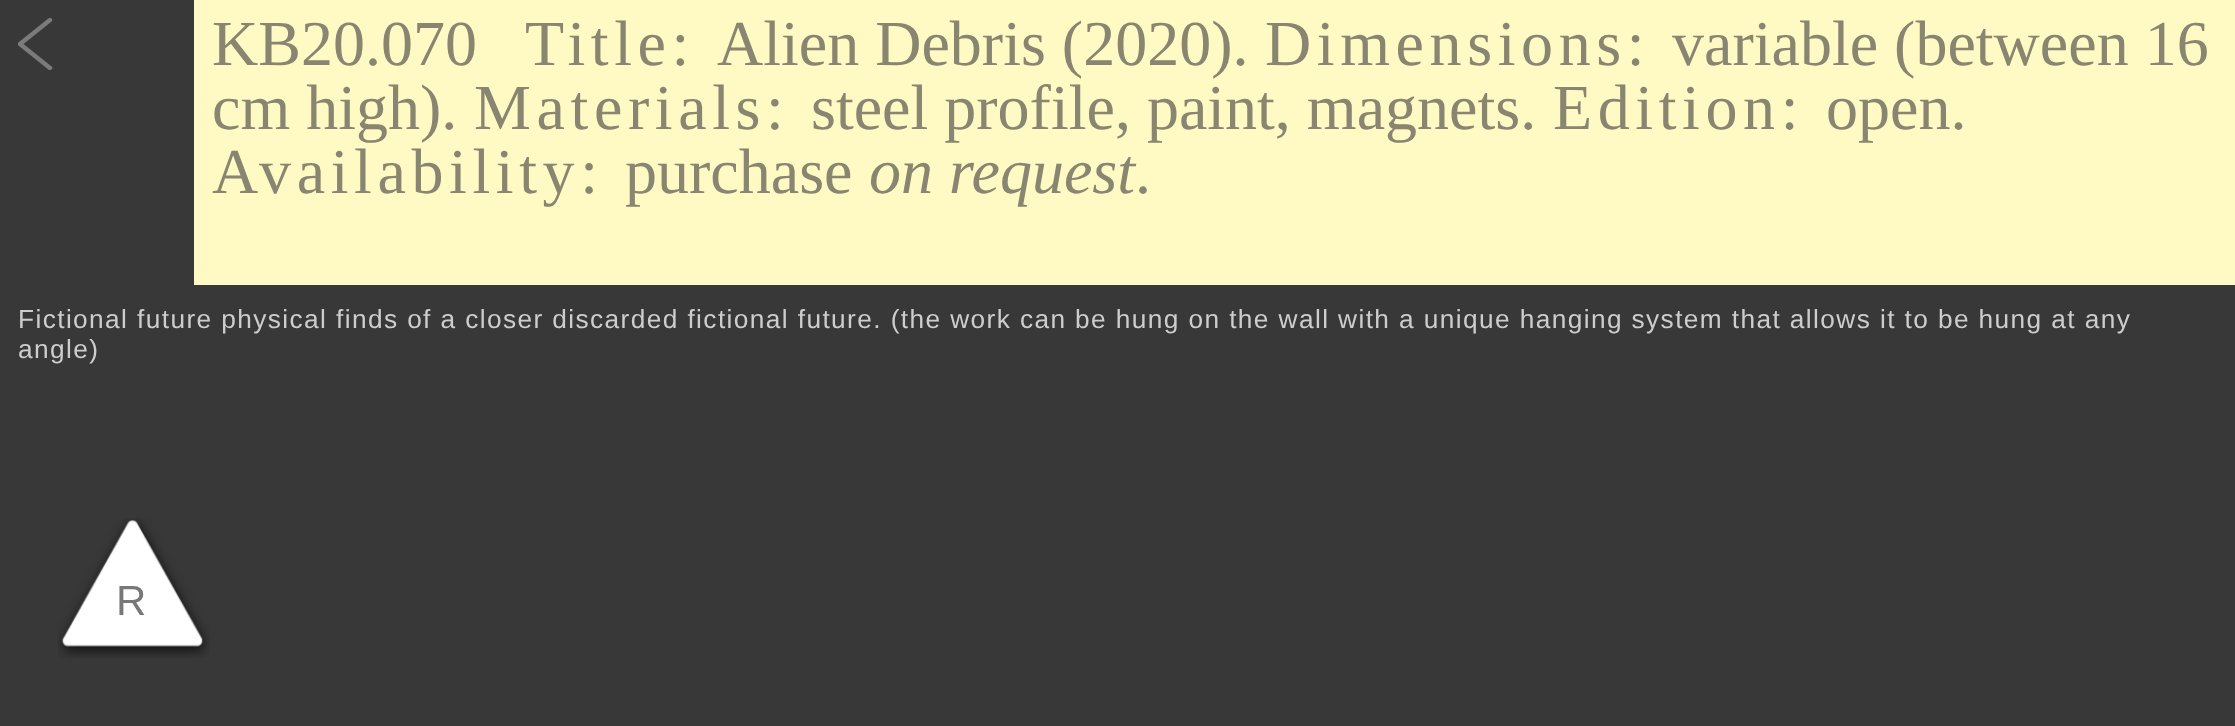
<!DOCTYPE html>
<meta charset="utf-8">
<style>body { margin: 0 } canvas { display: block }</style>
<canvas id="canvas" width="2235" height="726"></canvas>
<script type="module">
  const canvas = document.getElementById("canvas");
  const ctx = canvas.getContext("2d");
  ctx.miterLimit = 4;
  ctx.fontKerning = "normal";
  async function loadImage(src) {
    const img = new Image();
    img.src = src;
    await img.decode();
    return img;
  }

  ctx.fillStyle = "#383838";
  ctx.fillRect(0, 0, 2235, 726);
  ctx.save();
  ctx.beginPath();
  ctx.rect(18, 18, 175, 52);
  ctx.clip();
  ctx.beginPath();
  ctx.moveTo(50, 20);
  ctx.lineTo(20, 44);
  ctx.lineTo(50, 68);
  ctx.strokeStyle = "#7b7b7b";
  ctx.lineWidth = 4.4;
  ctx.lineCap = "round";
  ctx.lineJoin = "round";
  ctx.stroke();
  ctx.restore();
  ctx.fillStyle = "#fff9c4";
  ctx.fillRect(194, 0, 2041, 285);
  ctx.font = "64px Liberation Serif";
  ctx.fillStyle = "#888570";
  ctx.fillText("KB20.070", 212, 65);
  ctx.letterSpacing = "5.6px";
  ctx.fillText("Title:", 525, 65);
  ctx.letterSpacing = "0px";
  ctx.fillText("Alien Debris (2020).", 717, 65);
  ctx.letterSpacing = "5.6px";
  ctx.fillText("Dimensions:", 1265, 65);
  ctx.letterSpacing = "0px";
  ctx.fillText("variable (between 16", 1672, 65);
  ctx.fillText("cm high).", 212, 129);
  ctx.letterSpacing = "5.6px";
  ctx.fillText("Materials:", 474, 129);
  ctx.letterSpacing = "0px";
  ctx.fillText("steel profile, paint, magnets.", 811, 129);
  ctx.letterSpacing = "5.6px";
  ctx.fillText("Edition:", 1553, 129);
  ctx.letterSpacing = "0px";
  ctx.fillText("open.", 1826, 129);
  ctx.letterSpacing = "5.6px";
  ctx.fillText("Availability:", 212, 193);
  ctx.letterSpacing = "0px";
  ctx.fillText("purchase", 625, 193);
  ctx.font = "italic 64px Liberation Serif";
  ctx.fillText("on request", 869, 193);
  ctx.font = "64px Liberation Serif";
  ctx.fillText(".", 1135, 193);
  ctx.letterSpacing = "1.4px";
  ctx.font = "26.25px Liberation Sans";
  ctx.fillStyle = "#cdcdcd";
  ctx.fillText("Fictional future physical finds of a closer discarded fictional future. (the work can be hung on the wall with a unique hanging system that allows it to be hung at any", 18, 328);
  ctx.fillText("angle)", 18, 358);
  ctx.drawImage(await loadImage("img1.png"), 58, 518, 152, 140);
  ctx.font = "42px Liberation Sans";
  ctx.fillStyle = "#787878";
  ctx.fillText("R", 116, 615);
</script>
